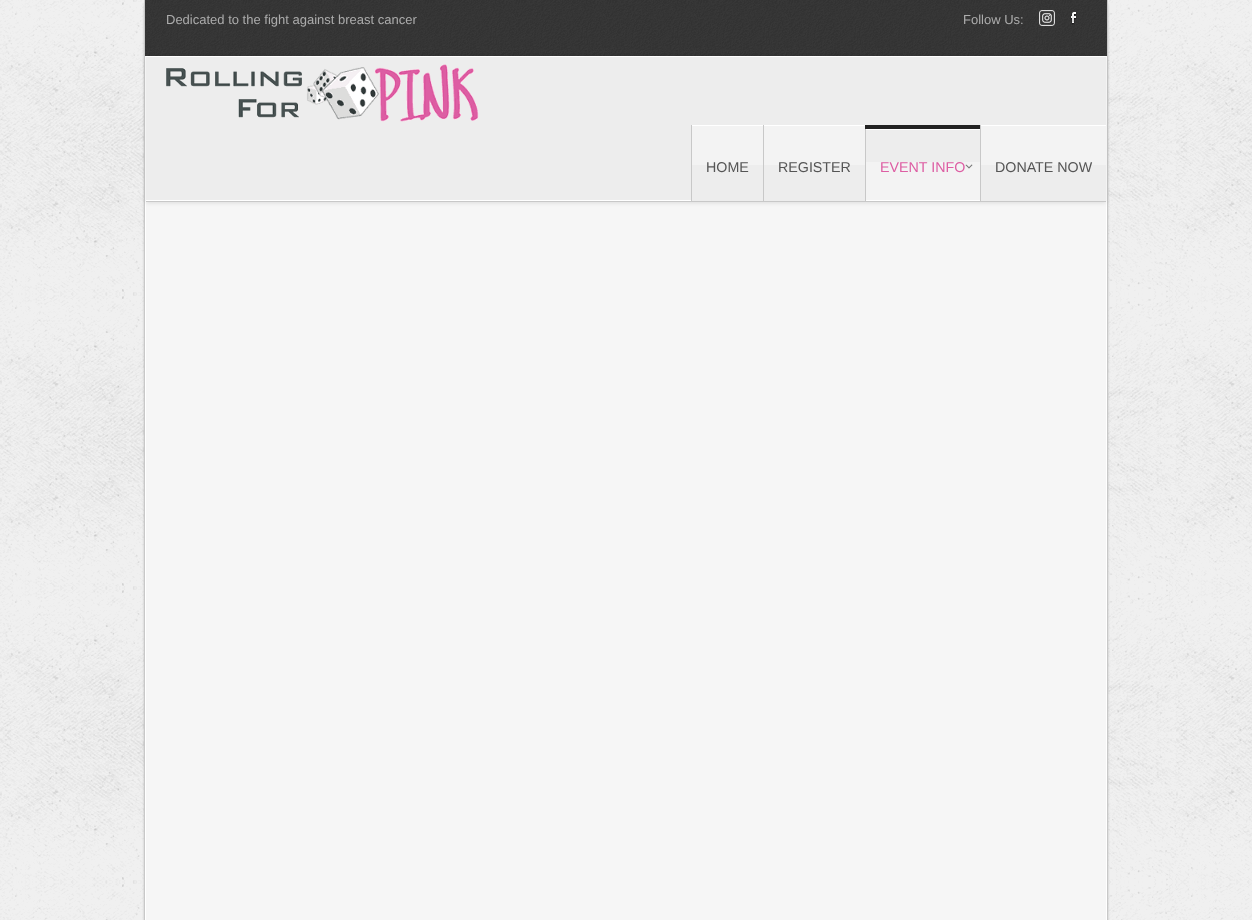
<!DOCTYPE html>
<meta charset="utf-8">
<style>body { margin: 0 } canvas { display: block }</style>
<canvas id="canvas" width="1252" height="920"></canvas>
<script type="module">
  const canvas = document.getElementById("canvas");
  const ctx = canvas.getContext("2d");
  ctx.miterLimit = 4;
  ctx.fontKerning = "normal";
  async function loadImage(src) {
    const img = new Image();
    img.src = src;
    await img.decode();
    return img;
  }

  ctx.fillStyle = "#eeeeee";
  ctx.fillRect(0, 0, 1252, 920);
  ctx.drawImage(await loadImage("img1.png"), 0, 0, 1252, 920);
  ctx.fillStyle = "rgba(0, 0, 0, 0.2)";
  ctx.filter = "blur(1px)";
  ctx.beginPath();
  ctx.roundRect(144, 0, 964, 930, 7);
  ctx.fill();
  ctx.filter = "none";
  ctx.fillStyle = "#f6f6f6";
  ctx.fillRect(146, 202, 960, 718);
  ctx.fillStyle = "#c8c8c8";
  ctx.beginPath();
  ctx.moveTo(144, 0);
  ctx.lineTo(1108, 0);
  ctx.lineTo(1108, 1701);
  ctx.bezierCurveTo(1108, 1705, 1105, 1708, 1101, 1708);
  ctx.lineTo(151, 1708);
  ctx.bezierCurveTo(147, 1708, 144, 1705, 144, 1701);
  ctx.closePath();
  ctx.moveTo(145, 0);
  ctx.lineTo(1107, 0);
  ctx.lineTo(1107, 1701);
  ctx.bezierCurveTo(1107, 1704, 1104, 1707, 1101, 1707);
  ctx.lineTo(151, 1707);
  ctx.bezierCurveTo(148, 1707, 145, 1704, 145, 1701);
  ctx.closePath();
  ctx.fill("evenodd");
  ctx.fillStyle = "#ffffff";
  ctx.beginPath();
  ctx.moveTo(145, 0);
  ctx.lineTo(1107, 0);
  ctx.lineTo(1107, 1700);
  ctx.bezierCurveTo(1107, 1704, 1104, 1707, 1100, 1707);
  ctx.lineTo(152, 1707);
  ctx.bezierCurveTo(148, 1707, 145, 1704, 145, 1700);
  ctx.closePath();
  ctx.moveTo(146, 0);
  ctx.lineTo(1106, 0);
  ctx.lineTo(1106, 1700);
  ctx.bezierCurveTo(1106, 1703, 1103, 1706, 1100, 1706);
  ctx.lineTo(152, 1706);
  ctx.bezierCurveTo(149, 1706, 146, 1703, 146, 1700);
  ctx.closePath();
  ctx.fill("evenodd");
  ctx.fillStyle = "#333333";
  ctx.fillRect(145, 0, 962, 56);
  ctx.drawImage(await loadImage("img2.png"), 145, 0, 962, 56);
  ctx.font = "13px Liberation Sans";
  ctx.fillStyle = "#acacac";
  ctx.fillText("Dedicated to the fight against breast cancer", 166, 24);
  ctx.fillText("Follow Us:", 963, 24);
  ctx.drawImage(await loadImage("img3.png"), 1039, 10, 16, 16);
  ctx.drawImage(await loadImage("img4.png"), 1070, 12, 7, 13);
  ctx.fillStyle = "rgba(0, 0, 0, 0.1)";
  ctx.filter = "blur(2px)";
  ctx.beginPath();
  ctx.rect(146, 57, 960, 146);
  ctx.fill();
  ctx.filter = "none";
  ctx.fillStyle = "#ffffff";
  ctx.fillRect(146, 56, 960, 1);
  ctx.fillStyle = "#c8c8c8";
  ctx.fillRect(146, 201, 960, 1);
  ctx.fillStyle = "#ededed";
  ctx.fillRect(146, 57, 960, 143);
  ctx.fillStyle = "#ffffff";
  ctx.fillRect(146, 200, 545, 1);
  ctx.drawImage(await loadImage("img5.png"), 166, 64, 313, 58);
  ctx.fillStyle = "#ededed";
  ctx.fillRect(692, 200, 414, 1);
  ctx.fillStyle = "#f3f3f3";
  ctx.fillRect(692, 126, 414, 39);
  ctx.fillStyle = "#ffffff";
  ctx.fillRect(691, 125, 174, 1);
  ctx.fillStyle = "#c8c8c8";
  ctx.fillRect(691, 125, 1, 76);
  ctx.font = "14.25px Liberation Sans";
  ctx.fillStyle = "#555555";
  ctx.fillText("HOME", 706, 172);
  ctx.fillStyle = "#c8c8c8";
  ctx.fillRect(763, 125, 1, 76);
  ctx.fillStyle = "#555555";
  ctx.fillText("REGISTER", 778, 172);
  ctx.fillStyle = "#ededed";
  ctx.fillRect(866, 130, 114, 32);
  ctx.fillStyle = "#f3f3f3";
  ctx.fillRect(866, 165, 114, 35);
  ctx.fillStyle = "#222222";
  ctx.fillRect(865, 125, 115, 4);
  ctx.fillStyle = "#ffffff";
  ctx.fillRect(865, 129, 115, 1);
  ctx.fillRect(865, 200, 115, 1);
  ctx.fillStyle = "#c8c8c8";
  ctx.fillRect(865, 129, 1, 72);
  ctx.fillStyle = "#dd5ea3";
  ctx.fillText("EVENT INFO", 880, 172);
  ctx.drawImage(await loadImage("img6.png"), 965, 164, 8, 5);
  ctx.fillStyle = "#ffffff";
  ctx.fillRect(980, 125, 126, 1);
  ctx.fillStyle = "#c8c8c8";
  ctx.fillRect(980, 125, 1, 76);
  ctx.fillStyle = "#555555";
  ctx.fillText("DONATE NOW", 995, 172);
</script>
